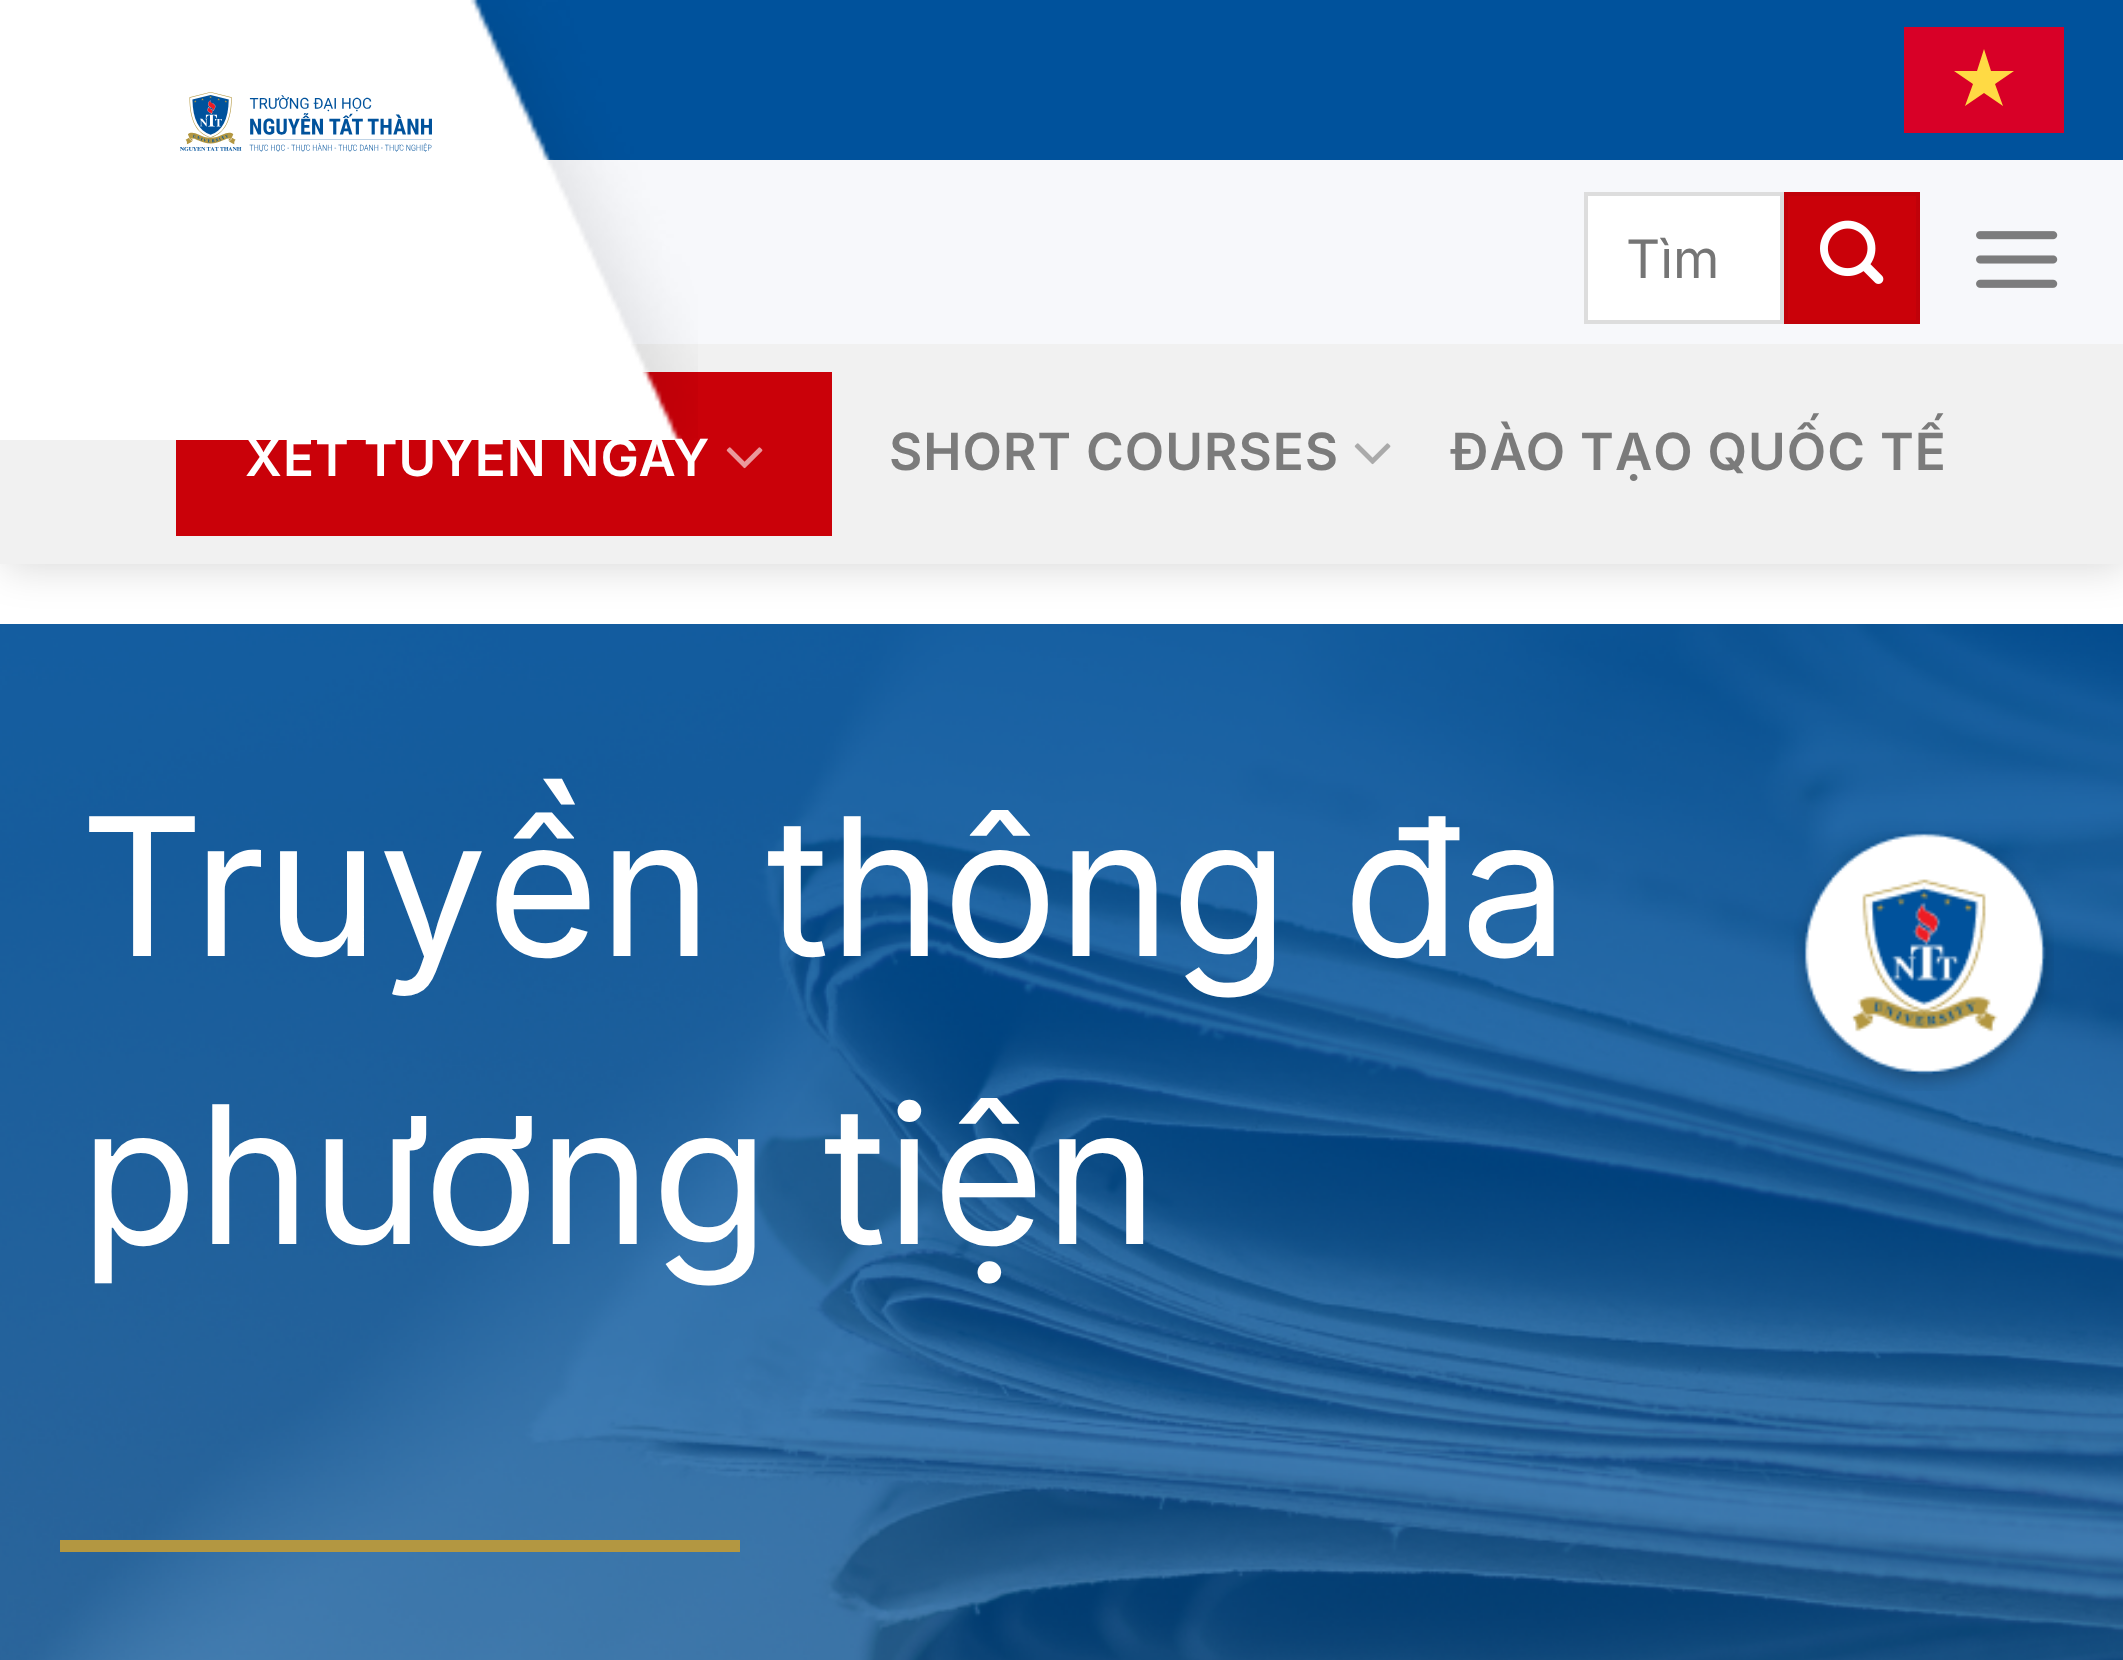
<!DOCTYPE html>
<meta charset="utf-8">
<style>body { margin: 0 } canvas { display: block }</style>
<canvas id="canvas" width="2123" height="1660"></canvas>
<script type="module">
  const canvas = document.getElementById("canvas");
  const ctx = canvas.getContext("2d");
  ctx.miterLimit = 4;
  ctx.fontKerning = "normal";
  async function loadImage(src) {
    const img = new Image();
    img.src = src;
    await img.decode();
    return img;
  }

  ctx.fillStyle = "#ffffff";
  ctx.fillRect(0, 0, 2123, 1660);
  ctx.drawImage(await loadImage("img7.png"), 0, 624, 2123, 1036);
  ctx.fillStyle = "rgba(0, 0, 0, 0.15)";
  ctx.filter = "blur(20px)";
  ctx.beginPath();
  ctx.rect(4, 4, 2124, 564);
  ctx.fill();
  ctx.filter = "none";
  ctx.fillStyle = "#f7f8fb";
  ctx.fillRect(542, 160, 1581, 184);
  ctx.fillStyle = "#00529c";
  ctx.fillRect(470, 0, 1653, 160);
  ctx.fillStyle = "#f1f1f1";
  ctx.fillRect(0, 344, 2123, 220);
  ctx.fillStyle = "#ca0109";
  ctx.fillRect(176, 372, 656, 164);
  ctx.fillStyle = "#ffffff";
  ctx.fillRect(0, 0, 444, 440);
  ctx.drawImage(await loadImage("img1.png"), 180, 92, 252, 60);
  ctx.letterSpacing = "1px";
  ctx.font = "600 51.25px Inter";
  ctx.fillText("XÉT TUYỂN NGAY", 245, 476);
  ctx.drawImage(await loadImage("img2.png"), 444, 0, 254, 440);
  ctx.fillStyle = "#d80027";
  ctx.beginPath();
  ctx.moveTo(1965, 27);
  ctx.lineTo(1904, 27);
  ctx.lineTo(1904, 133);
  ctx.lineTo(2064, 133);
  ctx.lineTo(2064, 27);
  ctx.closePath();
  ctx.fill();
  ctx.fillStyle = "#ffda44";
  ctx.beginPath();
  ctx.moveTo(1984, 49);
  ctx.lineTo(1991, 71);
  ctx.lineTo(2014, 71);
  ctx.lineTo(1995, 84);
  ctx.lineTo(2003, 106);
  ctx.lineTo(1984, 93);
  ctx.lineTo(1965, 106);
  ctx.lineTo(1973, 84);
  ctx.lineTo(1954, 71);
  ctx.lineTo(1977, 71);
  ctx.closePath();
  ctx.fill();
  ctx.fillStyle = "#ffffff";
  ctx.beginPath();
  ctx.rect(1586, 194, 196, 128);
  ctx.fill();
  ctx.strokeStyle = "#dddddd";
  ctx.lineWidth = 4;
  ctx.stroke();
  ctx.letterSpacing = "0px";
  ctx.font = "53px Inter";
  ctx.fillStyle = "#757575";
  ctx.fillText("Tìm", 1626, 278);
  ctx.fillStyle = "#ca0109";
  ctx.beginPath();
  ctx.rect(1786, 194, 132, 128);
  ctx.fill();
  ctx.strokeStyle = "#c00109";
  ctx.stroke();
  ctx.drawImage(await loadImage("img3.png"), 1820, 220, 64, 64);
  ctx.drawImage(await loadImage("img4.png"), 1976, 231, 82, 57);
  ctx.drawImage(await loadImage("img5.png"), 726, 447, 37, 22);
  ctx.letterSpacing = "1px";
  ctx.font = "600 51.25px Inter";
  ctx.fillStyle = "#7b7b7b";
  ctx.fillText("SHORT COURSES", 889, 470);
  ctx.drawImage(await loadImage("img6.png"), 1354, 443, 37, 22);
  ctx.fillText("ĐÀO TẠO QUỐC TẾ", 1450, 470);
  ctx.letterSpacing = "0px";
  ctx.font = "192px Inter";
  ctx.fillStyle = "#ffffff";
  ctx.fillText("Truyền thông đa", 80, 956);
  ctx.fillText("phương tiện", 80, 1244);
  ctx.fillStyle = "#b39741";
  ctx.fillRect(60, 1540, 680, 12);
  ctx.drawImage(await loadImage("img8.png"), 1794, 831, 260, 260);
</script>
